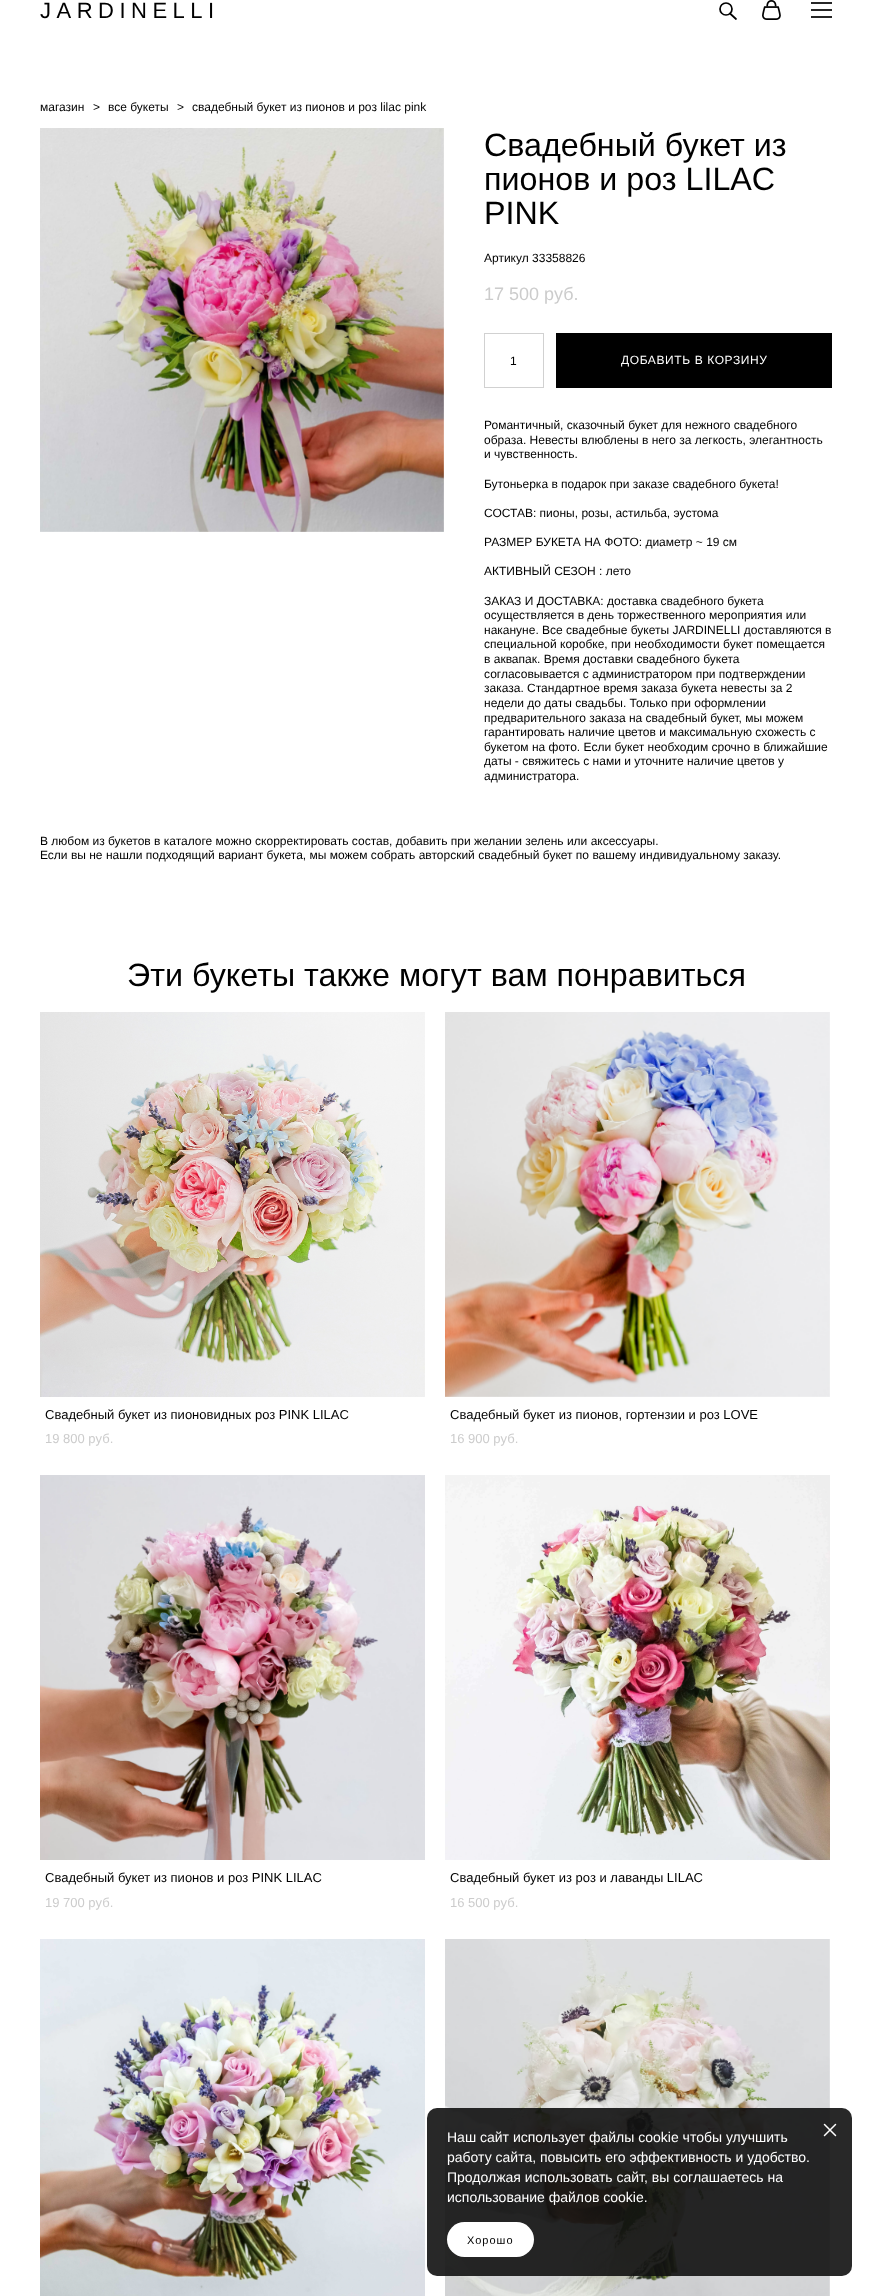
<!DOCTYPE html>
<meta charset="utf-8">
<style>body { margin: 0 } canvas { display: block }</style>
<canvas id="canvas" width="872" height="2296"></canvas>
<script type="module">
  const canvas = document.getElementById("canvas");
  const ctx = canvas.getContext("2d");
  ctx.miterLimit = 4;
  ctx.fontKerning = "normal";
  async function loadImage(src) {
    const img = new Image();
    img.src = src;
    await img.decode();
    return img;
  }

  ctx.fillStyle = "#ffffff";
  ctx.fillRect(0, 0, 872, 2296);
  ctx.letterSpacing = "5.5px";
  ctx.font = "22px Arimo";
  ctx.fillStyle = "#000000";
  ctx.fillText("JARDINELLI", 40, 18);
  ctx.beginPath();
  ctx.arc(726, 9, 6, 0, Math.PI * 2);
  ctx.strokeStyle = "#000000";
  ctx.lineWidth = 1.7;
  ctx.stroke();
  ctx.beginPath();
  ctx.moveTo(730, 13.5);
  ctx.lineTo(736, 19);
  ctx.lineCap = "round";
  ctx.lineJoin = "round";
  ctx.stroke();
  ctx.drawImage(await loadImage("img1.png"), 762, 0, 19, 20);
  ctx.fillStyle = "#262626";
  ctx.fillRect(811, 2, 21, 2);
  ctx.fillRect(811, 9, 21, 2);
  ctx.fillRect(811, 16, 21, 2);
  ctx.letterSpacing = "0px";
  ctx.font = "12px Liberation Sans";
  ctx.fillStyle = "#000000";
  ctx.fillText("магазин", 40, 111);
  ctx.fillText(">", 93, 111);
  ctx.fillText("все букеты", 108, 111);
  ctx.fillText(">", 177, 111);
  ctx.fillText("свадебный букет из пионов и роз lilac pink", 192, 111);
  ctx.drawImage(await loadImage("img2.png"), 40, 128, 404, 404);
  ctx.font = "32.25px Liberation Sans";
  ctx.fillText("Свадебный букет из", 484, 156);
  ctx.fillText("пионов и роз LILAC", 484, 190);
  ctx.fillText("PINK", 484, 224);
  ctx.font = "12px Liberation Sans";
  ctx.fillText("Артикул 33358826", 484, 262);
  ctx.font = "18px Liberation Sans";
  ctx.fillStyle = "#cccccc";
  ctx.fillText("17 500 pуб.", 484, 300);
  ctx.strokeStyle = "#d1d1d1";
  ctx.lineWidth = 1;
  ctx.lineJoin = "miter";
  ctx.strokeRect(484.5, 333.5, 59, 54);
  ctx.font = "12px Liberation Sans";
  ctx.fillStyle = "#000000";
  ctx.fillText("1", 510, 365);
  ctx.fillRect(556, 333, 276, 55);
  ctx.letterSpacing = "0.6px";
  ctx.fillStyle = "#ffffff";
  ctx.fillText("ДОБАВИТЬ В КОРЗИНУ", 621, 364);
  ctx.letterSpacing = "0px";
  ctx.fillStyle = "#000000";
  ctx.fillText("Романтичный, сказочный букет для нежного свадебного", 484, 429);
  ctx.fillText("образа. Невесты влюблены в него за легкость, элегантность", 484, 444);
  ctx.fillText("и чувственность.", 484, 458);
  ctx.fillText("Бутоньерка в подарок при заказе свадебного букета!", 484, 488);
  ctx.fillText("СОСТАВ: пионы, розы, астильба, эустома", 484, 517);
  ctx.fillText("РАЗМЕР БУКЕТА НА ФОТО: диаметр ~ 19 см", 484, 546);
  ctx.fillText("АКТИВНЫЙ СЕЗОН : лето", 484, 575);
  ctx.fillText("ЗАКАЗ И ДОСТАВКА: доставка свадебного букета", 484, 605);
  ctx.fillText("осуществляется в день торжественного мероприятия или", 484, 619);
  ctx.fillText("накануне. Все свадебные букеты JARDINELLI доставляются в", 484, 634);
  ctx.fillText("специальной коробке, при необходимости букет помещается", 484, 648);
  ctx.fillText("в аквапак. Время доставки свадебного букета", 484, 663);
  ctx.fillText("согласовывается с администратором при подтверждении", 484, 678);
  ctx.fillText("заказа. Стандартное время заказа букета невесты за 2", 484, 692);
  ctx.fillText("недели до даты свадьбы. Только при оформлении", 484, 707);
  ctx.fillText("предварительного заказа на свадебный букет, мы можем", 484, 722);
  ctx.fillText("гарантировать наличие цветов и максимальную схожесть с", 484, 736);
  ctx.fillText("букетом на фото. Если букет необходим срочно в ближайшие", 484, 751);
  ctx.fillText("даты - свяжитесь с нами и уточните наличие цветов у", 484, 765);
  ctx.fillText("администратора.", 484, 780);
  ctx.fillText("В любом из букетов в каталоге можно скорректировать состав, добавить при желании зелень или аксессуары.", 40, 845);
  ctx.fillText("Если вы не нашли подходящий вариант букета, мы можем собрать авторский свадебный букет по вашему индивидуальному заказу.", 40, 859);
  ctx.font = "32.25px Liberation Sans";
  ctx.fillText("Эти букеты также могут вам понравиться", 127, 986);
  ctx.drawImage(await loadImage("img3.png"), 40, 1012, 385, 385);
  ctx.font = "13px Liberation Sans";
  ctx.fillText("Свадебный букет из пионовидных роз PINK LILAC", 45, 1419);
  ctx.fillStyle = "#cccccc";
  ctx.fillText("19 800 pуб.", 45, 1443);
  ctx.drawImage(await loadImage("img4.png"), 445, 1012, 385, 385);
  ctx.fillStyle = "#000000";
  ctx.fillText("Свадебный букет из пионов, гортензии и роз LOVE", 450, 1419);
  ctx.fillStyle = "#cccccc";
  ctx.fillText("16 900 pуб.", 450, 1443);
  ctx.drawImage(await loadImage("img5.png"), 40, 1475, 385, 385);
  ctx.fillStyle = "#000000";
  ctx.fillText("Свадебный букет из пионов и роз PINK LILAC", 45, 1882);
  ctx.fillStyle = "#cccccc";
  ctx.fillText("19 700 pуб.", 45, 1907);
  ctx.drawImage(await loadImage("img6.png"), 445, 1475, 385, 385);
  ctx.fillStyle = "#000000";
  ctx.fillText("Свадебный букет из роз и лаванды LILAC", 450, 1882);
  ctx.fillStyle = "#cccccc";
  ctx.fillText("16 500 pуб.", 450, 1907);
  ctx.drawImage(await loadImage("img7.png"), 40, 1939, 385, 357);
  ctx.drawImage(await loadImage("img8.png"), 445, 1939, 385, 357);
  ctx.fillStyle = "rgba(17, 17, 17, 0.9)";
  ctx.beginPath();
  ctx.roundRect(427, 2108, 425, 168, 10);
  ctx.fill();
  ctx.font = "14px Liberation Sans";
  ctx.fillStyle = "#ffffff";
  ctx.fillText("Наш сайт использует файлы cookie чтобы улучшить", 447, 2142);
  ctx.fillText("работу сайта, повысить его эффективность и удобство.", 447, 2162);
  ctx.fillText("Продолжая использовать сайт, вы соглашаетесь на", 447, 2182);
  ctx.fillText("использование файлов cookie.", 447, 2202);
  ctx.beginPath();
  ctx.roundRect(447, 2222, 87, 35, 17.5);
  ctx.fill();
  ctx.letterSpacing = "1px";
  ctx.font = "11px Liberation Sans";
  ctx.fillStyle = "#000000";
  ctx.fillText("Хорошо", 467, 2244);
  ctx.beginPath();
  ctx.moveTo(835.5, 2124.5);
  ctx.lineTo(824.5, 2135.5);
  ctx.moveTo(824.5, 2124.5);
  ctx.lineTo(835.5, 2135.5);
  ctx.strokeStyle = "#ffffff";
  ctx.lineWidth = 1.5;
  ctx.lineJoin = "round";
  ctx.stroke();
</script>
